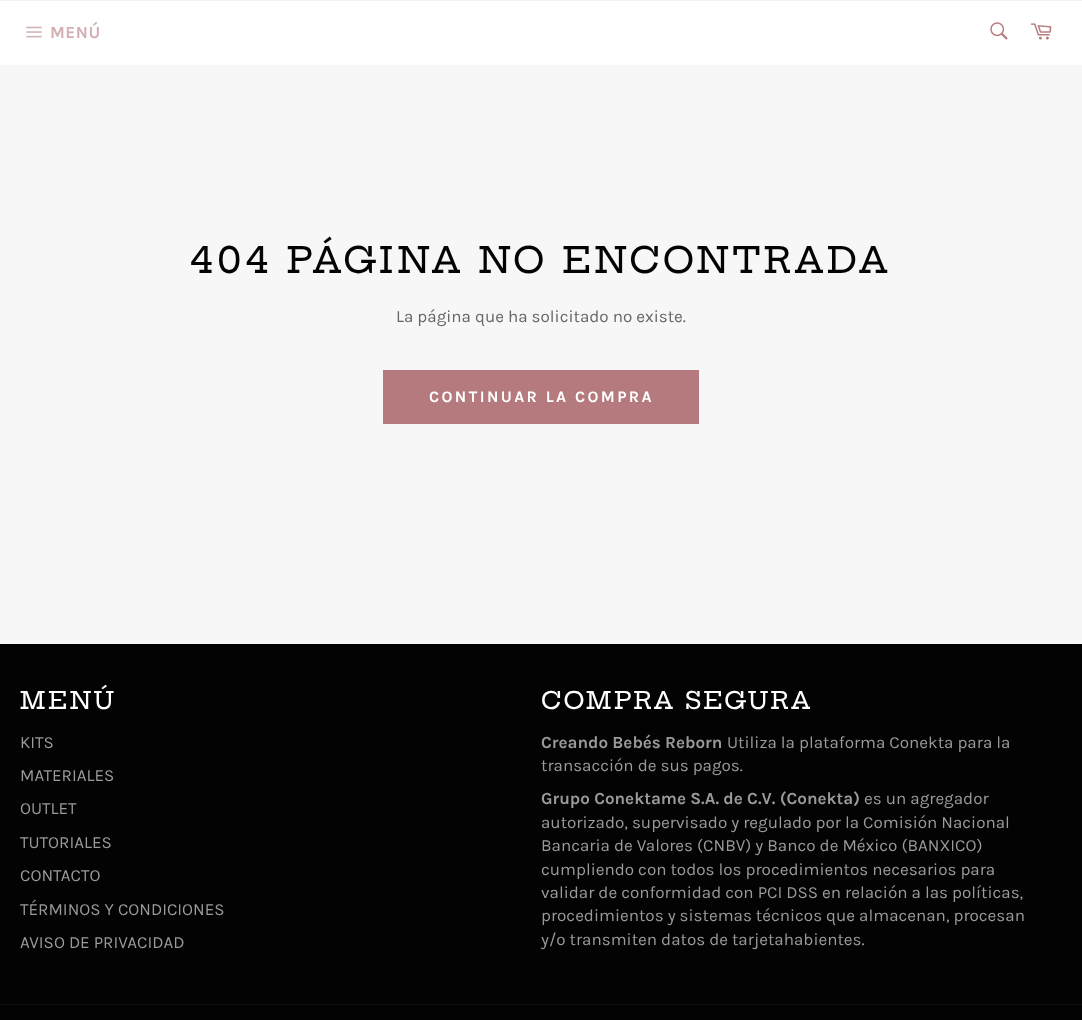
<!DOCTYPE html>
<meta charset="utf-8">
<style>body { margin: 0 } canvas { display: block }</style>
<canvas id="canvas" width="1082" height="1020"></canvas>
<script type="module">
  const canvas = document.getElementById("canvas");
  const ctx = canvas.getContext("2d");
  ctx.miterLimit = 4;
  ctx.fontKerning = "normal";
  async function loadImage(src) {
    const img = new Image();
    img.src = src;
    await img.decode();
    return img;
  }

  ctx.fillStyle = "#f7f7f7";
  ctx.fillRect(0, 0, 1082, 1020);
  ctx.fillStyle = "#ffffff";
  ctx.fillRect(0, 1, 1082, 64);
  ctx.fillStyle = "#f2f2f2";
  ctx.fillRect(0, 0, 1082, 1);
  ctx.drawImage(await loadImage("img1.png"), 26, 26, 16, 12);
  ctx.letterSpacing = "0.5px";
  ctx.font = "bold 17px Karla";
  ctx.fillStyle = "#d3afb2";
  ctx.fillText("MENÚ", 50, 38);
  ctx.drawImage(await loadImage("img2.png"), 990, 22, 18, 18);
  ctx.drawImage(await loadImage("img3.png"), 1030, 23, 22, 17);
  ctx.letterSpacing = "3.6px";
  ctx.font = "500 36px Hepta Slab";
  ctx.fillStyle = "#030303";
  ctx.fillText("404 PÁGINA NO ENCONTRADA", 190, 273);
  ctx.letterSpacing = "0px";
  ctx.font = "17px Karla";
  ctx.fillStyle = "#666666";
  ctx.fillText("La página que ha solicitado no existe.", 396, 322);
  ctx.fillStyle = "#b57a7e";
  ctx.fillRect(383, 370, 316, 54);
  ctx.letterSpacing = "2.4px";
  ctx.font = "bold 16px Karla";
  ctx.fillStyle = "#ffffff";
  ctx.fillText("CONTINUAR LA COMPRA", 429, 402);
  ctx.fillStyle = "#030303";
  ctx.fillRect(0, 644, 1082, 376);
  ctx.font = "500 24px Hepta Slab";
  ctx.fillStyle = "#ffffff";
  ctx.fillText("MENÚ", 20, 709);
  ctx.letterSpacing = "0px";
  ctx.font = "17px Karla";
  ctx.fillStyle = "#9a9a9a";
  ctx.fillText("KITS", 20, 748);
  ctx.fillText("MATERIALES", 20, 781);
  ctx.fillText("OUTLET", 20, 814);
  ctx.fillText("TUTORIALES", 20, 848);
  ctx.fillText("CONTACTO", 20, 881);
  ctx.fillText("TÉRMINOS Y CONDICIONES", 20, 915);
  ctx.fillText("AVISO DE PRIVACIDAD", 20, 948);
  ctx.letterSpacing = "2.4px";
  ctx.font = "500 24px Hepta Slab";
  ctx.fillStyle = "#ffffff";
  ctx.fillText("COMPRA SEGURA", 541, 709);
  ctx.letterSpacing = "0px";
  ctx.font = "bold 17px Karla";
  ctx.fillStyle = "#9a9a9a";
  ctx.fillText("Creando Bebés Reborn", 541, 748);
  ctx.font = "17px Karla";
  ctx.fillText("Utiliza la plataforma Conekta para la", 727, 748);
  ctx.fillText("transacción de sus pagos.", 541, 771);
  ctx.font = "bold 17px Karla";
  ctx.fillText("Grupo Conektame S.A. de C.V. (Conekta)", 541, 804);
  ctx.font = "17px Karla";
  ctx.fillText("es un agregador", 864, 804);
  ctx.fillText("autorizado, supervisado y regulado por la Comisión Nacional", 541, 828);
  ctx.fillText("Bancaria de Valores (CNBV) y Banco de México (BANXICO)", 541, 851);
  ctx.fillText("cumpliendo con todos los procedimientos necesarios para", 541, 875);
  ctx.fillText("validar de conformidad con PCI DSS en relación a las políticas,", 541, 898);
  ctx.fillText("procedimientos y sistemas técnicos que almacenan, procesan", 541, 921);
  ctx.fillText("y/o transmiten datos de tarjetahabientes.", 541, 945);
  ctx.fillStyle = "#101010";
  ctx.fillRect(0, 1004, 1082, 1);
</script>
